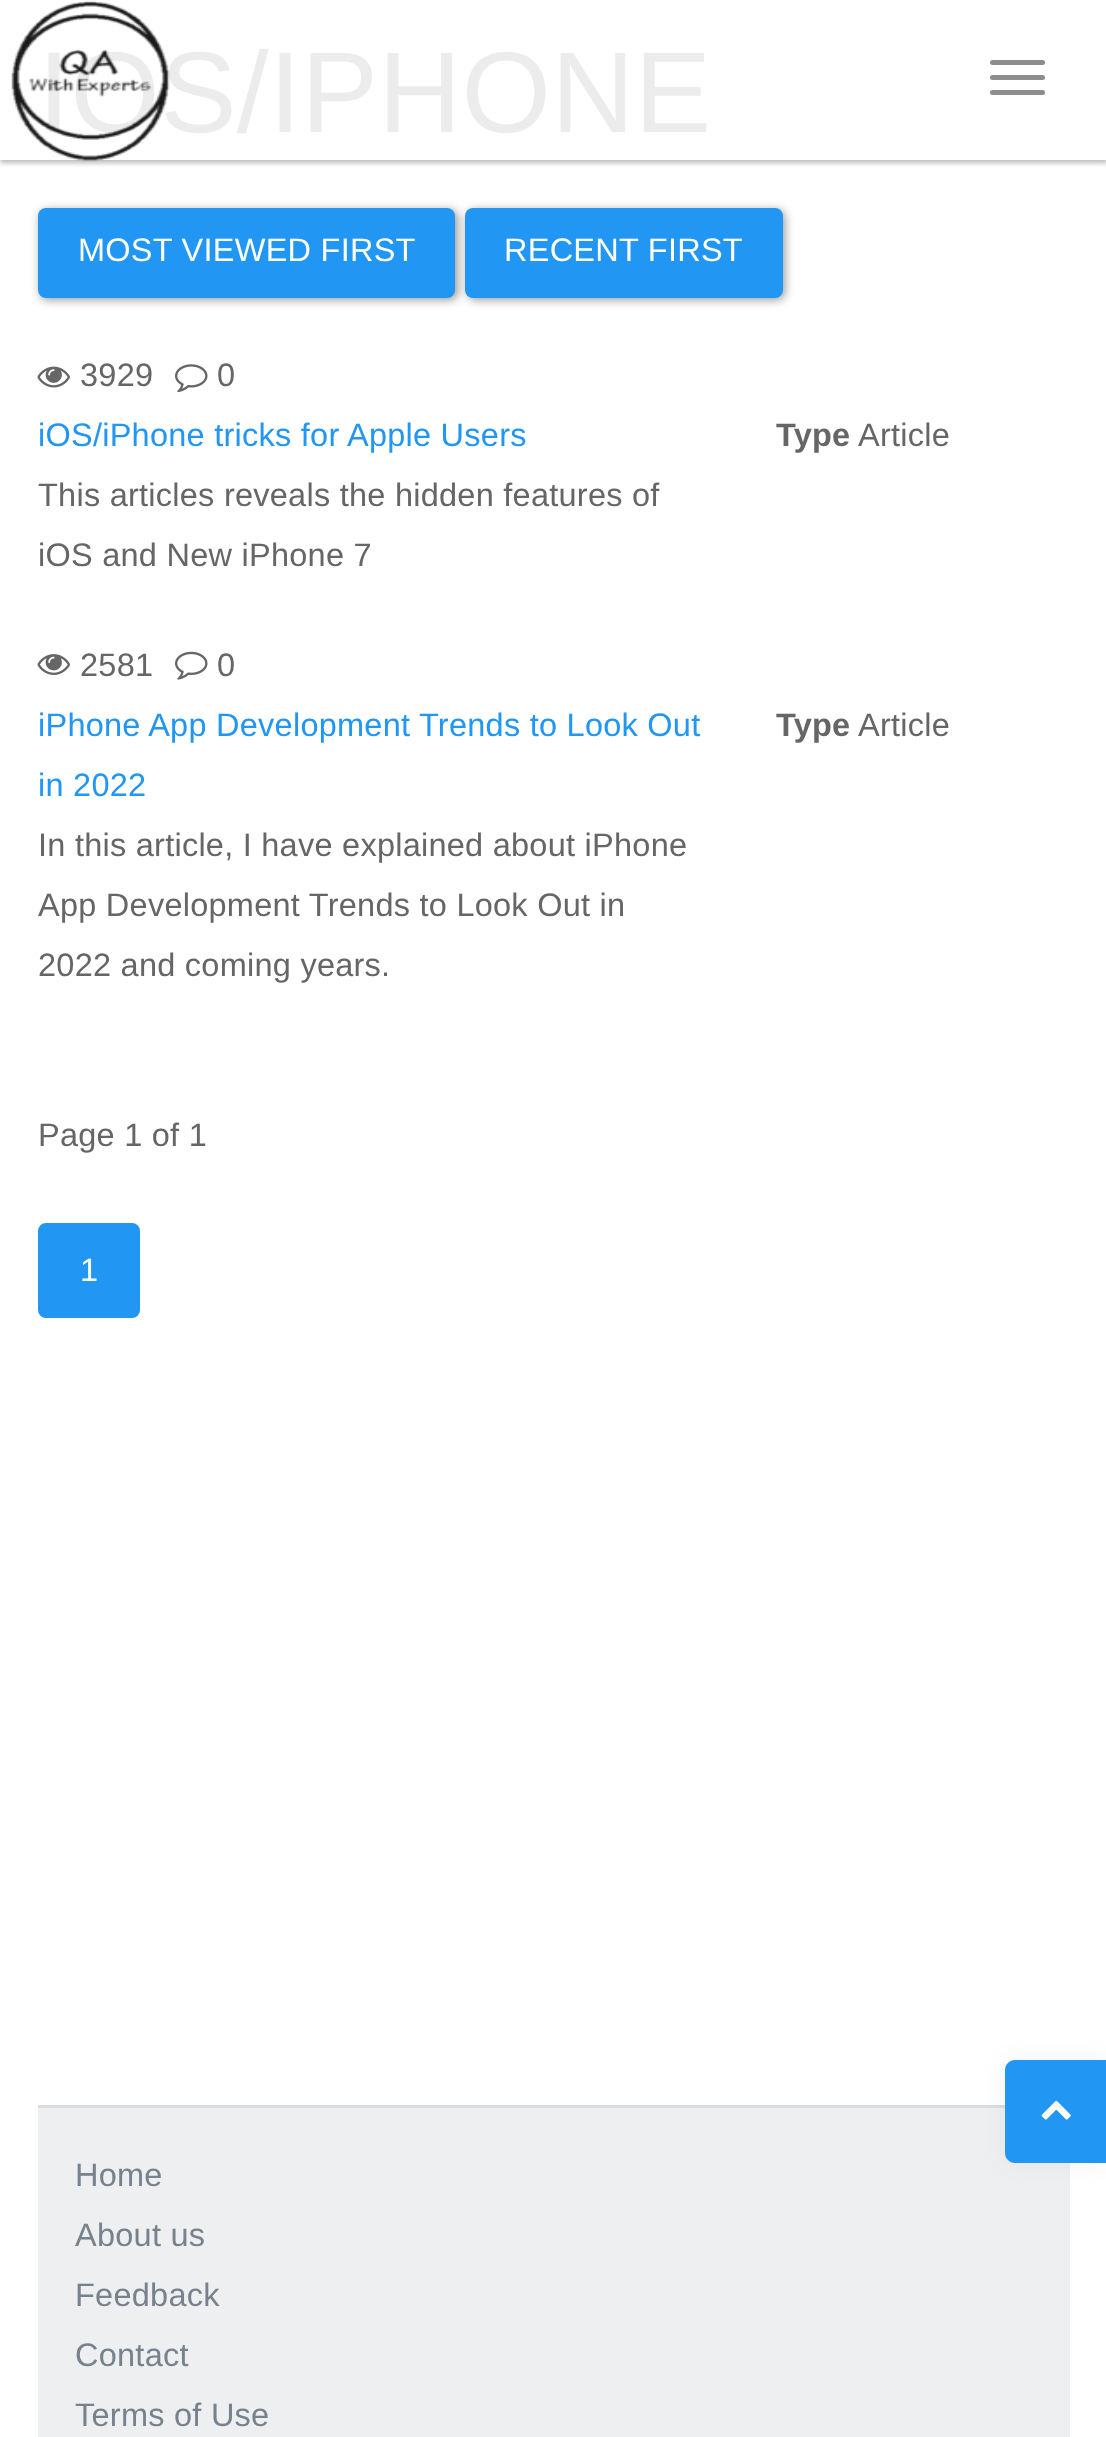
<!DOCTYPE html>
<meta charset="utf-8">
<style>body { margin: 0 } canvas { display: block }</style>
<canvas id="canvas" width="1106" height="2437"></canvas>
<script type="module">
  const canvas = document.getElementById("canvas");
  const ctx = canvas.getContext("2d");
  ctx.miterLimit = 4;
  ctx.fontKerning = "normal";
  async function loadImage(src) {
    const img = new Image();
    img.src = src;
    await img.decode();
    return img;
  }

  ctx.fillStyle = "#ffffff";
  ctx.fillRect(0, 0, 1106, 2437);
  ctx.save();
  ctx.beginPath();
  ctx.rect(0, 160, 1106, 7);
  ctx.clip();
  ctx.fillStyle = "rgba(26, 26, 26, 0.3)";
  ctx.filter = "blur(2.5px)";
  ctx.beginPath();
  ctx.rect(0, 3, 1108, 160);
  ctx.fill();
  ctx.filter = "none";
  ctx.restore();
  ctx.letterSpacing = "0.25px";
  ctx.font = "115px Liberation Sans";
  ctx.fillStyle = "#ececec";
  ctx.fillText("IOS/IPHONE", 38, 132);
  ctx.drawImage(await loadImage("img1.png"), 11, 0, 159, 162);
  ctx.fillStyle = "#8d8d8d";
  ctx.beginPath();
  ctx.roundRect(990, 60, 55, 5, 2.5);
  ctx.fill();
  ctx.beginPath();
  ctx.roundRect(990, 75, 55, 5, 2.5);
  ctx.fill();
  ctx.beginPath();
  ctx.roundRect(990, 90, 55, 5, 2.5);
  ctx.fill();
  ctx.fillStyle = "rgba(0, 0, 0, 0.4)";
  ctx.filter = "blur(5px)";
  ctx.beginPath();
  ctx.roundRect(40, 210, 418, 90, 8);
  ctx.fill();
  ctx.filter = "none";
  ctx.fillStyle = "#2196f3";
  ctx.beginPath();
  ctx.roundRect(38, 208, 417, 90, 8);
  ctx.fill();
  ctx.font = "32.5px Liberation Sans";
  ctx.fillStyle = "#ffffff";
  ctx.fillText("MOST VIEWED FIRST", 78, 261);
  ctx.fillStyle = "rgba(0, 0, 0, 0.4)";
  ctx.filter = "blur(5px)";
  ctx.beginPath();
  ctx.roundRect(468, 210, 317, 90, 8);
  ctx.fill();
  ctx.filter = "none";
  ctx.fillStyle = "#2196f3";
  ctx.beginPath();
  ctx.roundRect(465, 208, 318, 90, 8);
  ctx.fill();
  ctx.fillStyle = "#ffffff";
  ctx.fillText("RECENT FIRST", 504, 261);
  ctx.drawImage(await loadImage("img2.png"), 37, 366, 33, 22);
  ctx.fillStyle = "#666666";
  ctx.fillText("3929", 80, 386);
  ctx.drawImage(await loadImage("img3.png"), 175, 364, 33, 29);
  ctx.fillText("0", 217, 386);
  ctx.fillStyle = "#2196f3";
  ctx.fillText("iOS/iPhone tricks for Apple Users", 38, 446);
  ctx.fillStyle = "#666666";
  ctx.fillText("This articles reveals the hidden features of", 38, 506);
  ctx.fillText("iOS and New iPhone 7", 38, 566);
  ctx.font = "bold 32.5px Liberation Sans";
  ctx.fillText("Type", 776, 446);
  ctx.font = "32.5px Liberation Sans";
  ctx.fillText("Article", 858, 446);
  ctx.drawImage(await loadImage("img4.png"), 37, 654, 33, 21);
  ctx.fillText("2581", 80, 676);
  ctx.drawImage(await loadImage("img5.png"), 175, 651, 33, 29);
  ctx.fillText("0", 217, 676);
  ctx.fillStyle = "#2196f3";
  ctx.fillText("iPhone App Development Trends to Look Out", 38, 736);
  ctx.fillText("in 2022", 38, 796);
  ctx.fillStyle = "#666666";
  ctx.fillText("In this article, I have explained about iPhone", 38, 856);
  ctx.fillText("App Development Trends to Look Out in", 38, 916);
  ctx.fillText("2022 and coming years.", 38, 976);
  ctx.font = "bold 32.5px Liberation Sans";
  ctx.fillText("Type", 776, 736);
  ctx.font = "32.5px Liberation Sans";
  ctx.fillText("Article", 858, 736);
  ctx.fillText("Page 1 of 1", 38, 1146);
  ctx.fillStyle = "#2196f3";
  ctx.beginPath();
  ctx.roundRect(39.5, 1224.5, 99, 92, 6.5);
  ctx.fill();
  ctx.strokeStyle = "#2196f3";
  ctx.lineWidth = 3;
  ctx.stroke();
  ctx.fillStyle = "#ffffff";
  ctx.fillText("1", 80, 1281);
  ctx.fillStyle = "#edeff1";
  ctx.fillRect(38, 2108, 1032, 329);
  ctx.fillStyle = "#dddddd";
  ctx.fillRect(38, 2105, 967, 3);
  ctx.fillStyle = "#78828d";
  ctx.fillText("Home", 75, 2186);
  ctx.fillText("About us", 75, 2246);
  ctx.fillText("Feedback", 75, 2306);
  ctx.fillText("Contact", 75, 2366);
  ctx.fillText("Terms of Use", 75, 2426);
  ctx.fillStyle = "rgba(0, 0, 0, 0.05)";
  ctx.filter = "blur(12.5px)";
  ctx.beginPath();
  ctx.roundRect(1005, 2060, 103, 103, 10);
  ctx.fill();
  ctx.filter = "none";
  ctx.fillStyle = "#2196f3";
  ctx.beginPath();
  ctx.moveTo(1015, 2060);
  ctx.lineTo(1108, 2060);
  ctx.lineTo(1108, 2163);
  ctx.lineTo(1015, 2163);
  ctx.bezierCurveTo(1009.5, 2163, 1005, 2158.5, 1005, 2153);
  ctx.lineTo(1005, 2070);
  ctx.bezierCurveTo(1005, 2064.5, 1009.5, 2060, 1015, 2060);
  ctx.closePath();
  ctx.fill();
  ctx.drawImage(await loadImage("img6.png"), 1041, 2100, 30, 20);
</script>
